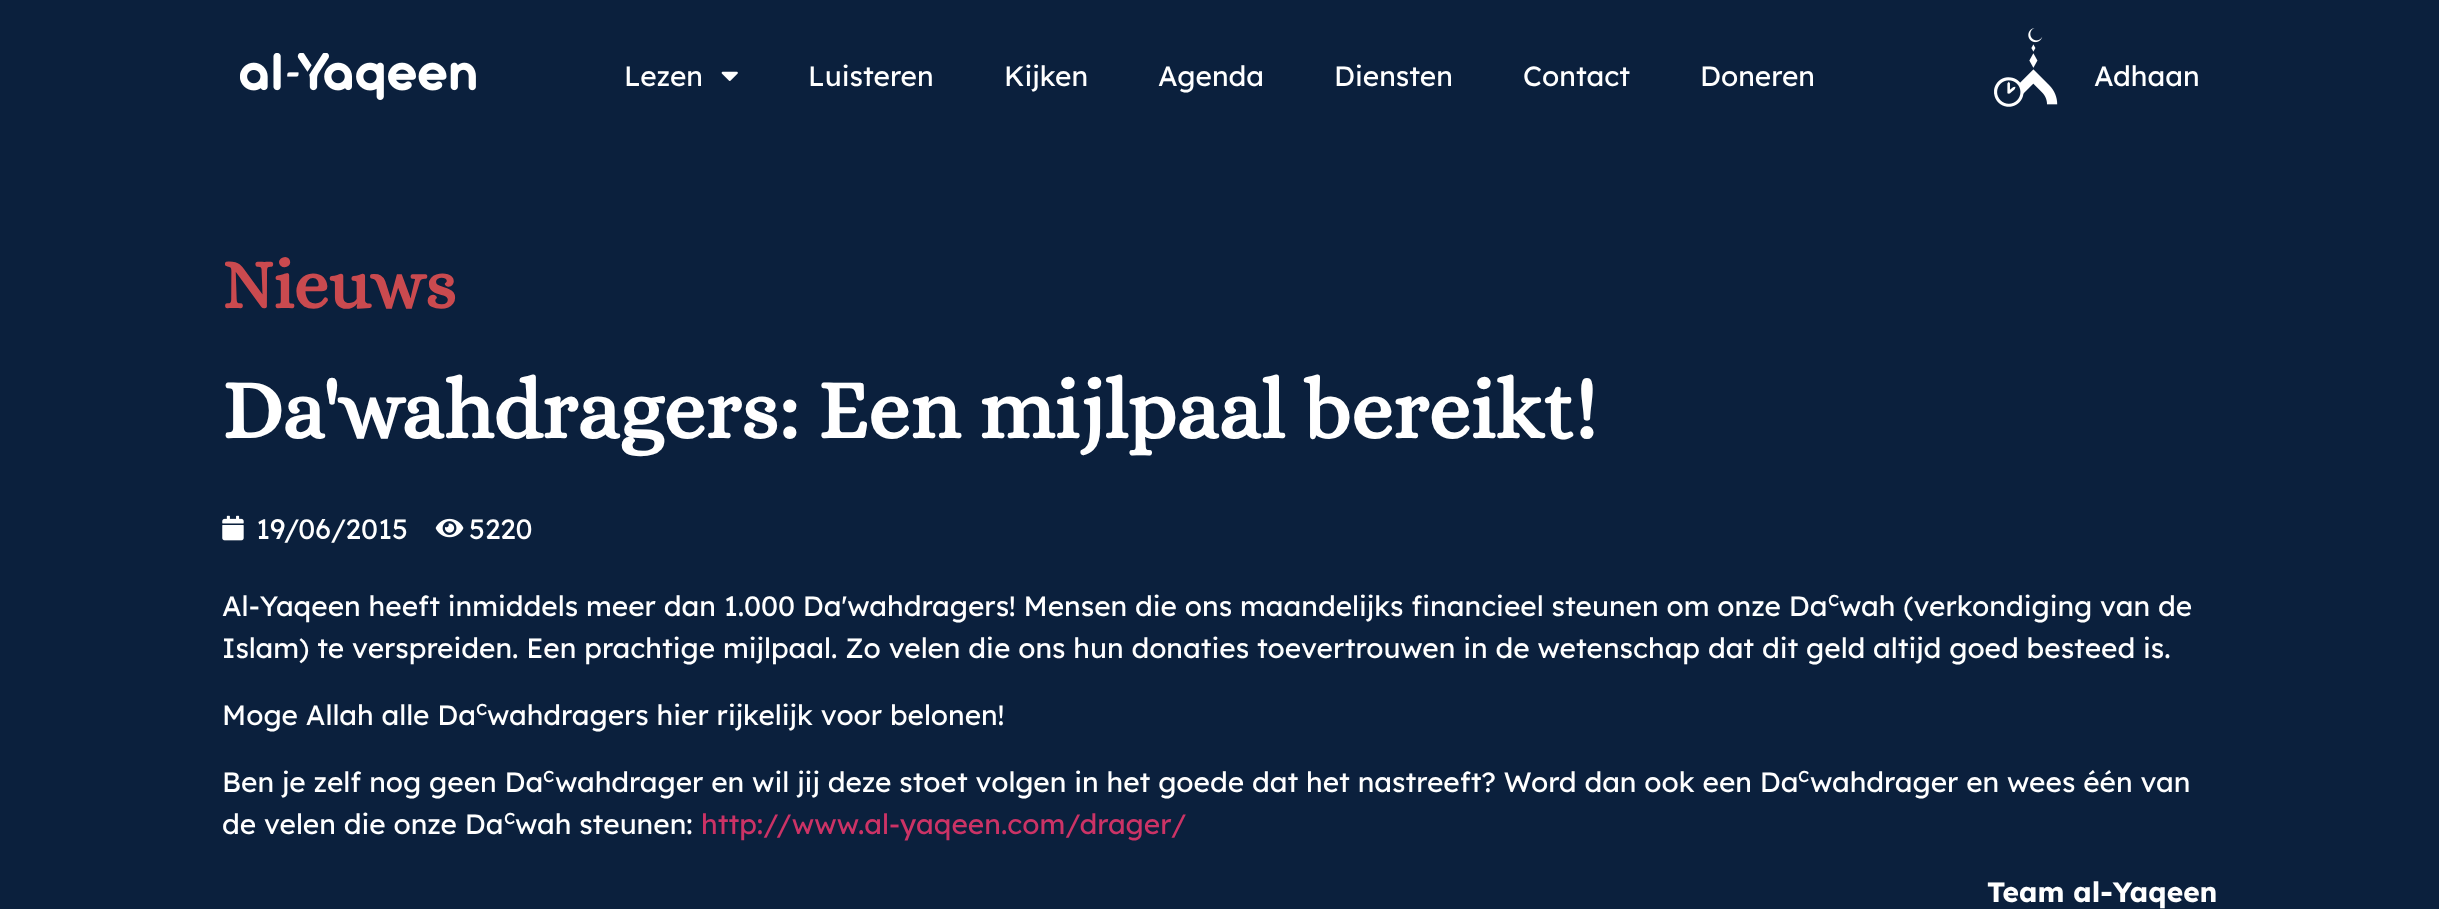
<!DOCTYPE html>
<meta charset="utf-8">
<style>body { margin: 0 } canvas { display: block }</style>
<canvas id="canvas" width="2439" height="909"></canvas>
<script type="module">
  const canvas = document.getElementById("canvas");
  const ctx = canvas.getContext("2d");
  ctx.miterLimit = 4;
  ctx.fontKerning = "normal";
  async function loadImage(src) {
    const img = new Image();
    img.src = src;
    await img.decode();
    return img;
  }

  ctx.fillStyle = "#0b203d";
  ctx.fillRect(0, 0, 2439, 909);
  ctx.drawImage(await loadImage("img1.png"), 240, 53, 236, 47);
  ctx.font = "28px Lexend Deca";
  ctx.fillStyle = "#ffffff";
  ctx.fillText("Lezen", 624, 86);
  ctx.drawImage(await loadImage("img2.png"), 721, 71, 17, 10);
  ctx.fillText("Luisteren", 808, 86);
  ctx.fillText("Kijken", 1004, 86);
  ctx.fillText("Agenda", 1158, 86);
  ctx.fillText("Diensten", 1334, 86);
  ctx.fillText("Contact", 1523, 86);
  ctx.fillText("Doneren", 1700, 86);
  ctx.drawImage(await loadImage("img3.png"), 1994, 28, 64, 79);
  ctx.fillText("Adhaan", 2094, 86);
  ctx.font = "bold 70px Alice";
  ctx.fillStyle = "#ca4a4f";
  ctx.fillText("Nieuws", 222, 308);
  ctx.font = "bold 84px Alice";
  ctx.fillStyle = "#ffffff";
  ctx.fillText("Da'wahdragers: Een mijlpaal bereikt!", 222, 438);
  ctx.drawImage(await loadImage("img4.png"), 222, 515, 22, 26);
  ctx.font = "28px Lexend Deca";
  ctx.fillText("19/06/2015", 256, 539);
  ctx.drawImage(await loadImage("img5.png"), 435, 518, 29, 20);
  ctx.fillText("5220", 469, 539);
  ctx.fillText("Al-Yaqeen heeft inmiddels meer dan 1.000 Da'wahdragers! Mensen die ons maandelijks financieel steunen om onze Da", 222, 616);
  ctx.font = "21px Lexend Deca";
  ctx.fillText("c", 1828, 606);
  ctx.font = "28px Lexend Deca";
  ctx.fillText("wah (verkondiging van de", 1839, 616);
  ctx.fillText("Islam) te verspreiden. Een prachtige mijlpaal. Zo velen die ons hun donaties toevertrouwen in de wetenschap dat dit geld altijd goed besteed is.", 222, 658);
  ctx.fillText("Moge Allah alle Da", 222, 725);
  ctx.font = "21px Lexend Deca";
  ctx.fillText("c", 476, 715);
  ctx.font = "28px Lexend Deca";
  ctx.fillText("wahdragers hier rijkelijk voor belonen!", 487, 725);
  ctx.fillText("Ben je zelf nog geen Da", 222, 792);
  ctx.font = "21px Lexend Deca";
  ctx.fillText("c", 543, 782);
  ctx.font = "28px Lexend Deca";
  ctx.fillText("wahdrager en wil jij deze stoet volgen in het goede dat het nastreeft? Word dan ook een Da", 555, 792);
  ctx.font = "21px Lexend Deca";
  ctx.fillText("c", 1798, 782);
  ctx.font = "28px Lexend Deca";
  ctx.fillText("wahdrager en wees één van", 1810, 792);
  ctx.fillText("de velen die onze Da", 222, 834);
  ctx.font = "21px Lexend Deca";
  ctx.fillText("c", 504, 824);
  ctx.font = "28px Lexend Deca";
  ctx.fillText("wah steunen:", 515, 834);
  ctx.fillStyle = "#cc3366";
  ctx.fillText("http://www.al-yaqeen.com/drager/", 701, 834);
  ctx.font = "bold 28px Lexend Deca";
  ctx.fillStyle = "#ffffff";
  ctx.fillText("Team al-Yaqeen", 1987, 902);
</script>
